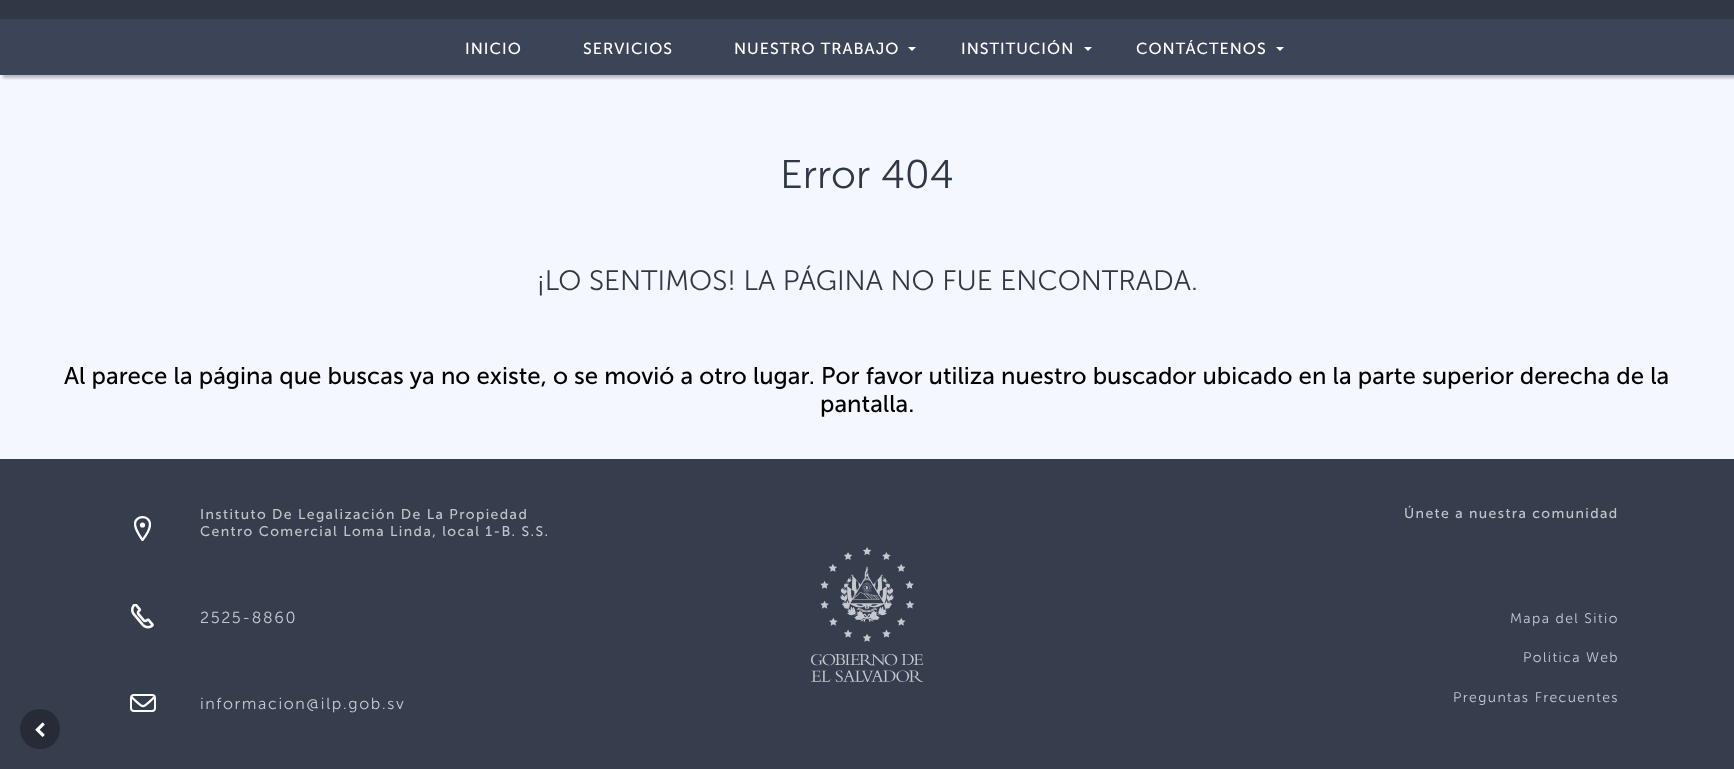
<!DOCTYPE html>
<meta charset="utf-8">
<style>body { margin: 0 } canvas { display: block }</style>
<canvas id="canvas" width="1734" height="769"></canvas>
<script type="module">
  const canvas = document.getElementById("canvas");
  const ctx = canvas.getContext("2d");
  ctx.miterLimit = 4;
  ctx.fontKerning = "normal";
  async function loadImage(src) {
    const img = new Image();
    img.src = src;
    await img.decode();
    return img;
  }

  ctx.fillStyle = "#303845";
  ctx.fillRect(0, 0, 1734, 769);
  ctx.fillStyle = "#f5f7fe";
  ctx.fillRect(0, 75, 1734, 384);
  ctx.fillStyle = "rgba(0, 0, 0, 0.25)";
  ctx.filter = "blur(1.5px)";
  ctx.beginPath();
  ctx.rect(3, 22, 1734, 56);
  ctx.fill();
  ctx.filter = "none";
  ctx.fillStyle = "#3c4557";
  ctx.fillRect(0, 19, 1734, 56);
  ctx.letterSpacing = "1px";
  ctx.font = "16px Museo Sans";
  ctx.fillStyle = "#feffff";
  ctx.fillText("INICIO", 465, 54);
  ctx.fillText("SERVICIOS", 583, 54);
  ctx.fillText("NUESTRO TRABAJO", 734, 54);
  ctx.beginPath();
  ctx.moveTo(908, 47);
  ctx.lineTo(916, 47);
  ctx.lineTo(912, 51);
  ctx.closePath();
  ctx.fill();
  ctx.fillText("INSTITUCIÓN", 961, 54);
  ctx.beginPath();
  ctx.moveTo(1084, 47);
  ctx.lineTo(1092, 47);
  ctx.lineTo(1088, 51);
  ctx.closePath();
  ctx.fill();
  ctx.fillText("CONTÁCTENOS", 1136, 54);
  ctx.beginPath();
  ctx.moveTo(1276, 47);
  ctx.lineTo(1284, 47);
  ctx.lineTo(1280, 51);
  ctx.closePath();
  ctx.fill();
  ctx.letterSpacing = "0px";
  ctx.font = "300 40px Museo Sans";
  ctx.fillStyle = "#303845";
  ctx.fillText("Error 404", 780, 188);
  ctx.font = "300 28px Museo Sans";
  ctx.fillText("¡LO SENTIMOS! LA PÁGINA NO FUE ENCONTRADA.", 537, 290);
  ctx.font = "24px Museo Sans";
  ctx.fillStyle = "#000000";
  ctx.fillText("Al parece la página que buscas ya no existe, o se movió a otro lugar. Por favor utiliza nuestro buscador ubicado en la parte superior derecha de la", 64, 384);
  ctx.fillText("pantalla.", 820, 412);
  ctx.fillStyle = "#363d4d";
  ctx.fillRect(0, 459, 1734, 310);
  ctx.save();
  ctx.beginPath();
  ctx.rect(134, 516, 17, 25);
  ctx.clip();
  ctx.beginPath();
  ctx.moveTo(150, 524.5);
  ctx.bezierCurveTo(150, 530.5, 142.5, 540, 142.5, 540);
  ctx.bezierCurveTo(139.5, 535.5, 135.5, 530, 135, 524.5);
  ctx.bezierCurveTo(134.5, 515, 150, 514.5, 150, 524.5);
  ctx.closePath();
  ctx.strokeStyle = "#ffffff";
  ctx.lineWidth = 2.3;
  ctx.lineCap = "round";
  ctx.lineJoin = "round";
  ctx.stroke();
  ctx.restore();
  ctx.fillStyle = "#ffffff";
  ctx.beginPath();
  ctx.arc(142.5, 525, 2.6, 0, Math.PI * 2);
  ctx.fill();
  ctx.letterSpacing = "1.4px";
  ctx.font = "14px Museo Sans";
  ctx.fillStyle = "#c1c4c8";
  ctx.fillText("Instituto De Legalización De La Propiedad", 200, 519);
  ctx.fillText("Centro Comercial Loma Linda, local 1-B. S.S.", 200, 536);
  ctx.drawImage(await loadImage("img1.png"), 131, 604, 23, 25);
  ctx.letterSpacing = "1.6px";
  ctx.font = "300 16px Museo Sans";
  ctx.fillStyle = "#c5c8cf";
  ctx.fillText("2525-8860", 200, 623);
  ctx.beginPath();
  ctx.roundRect(131, 695, 24, 16, 3);
  ctx.strokeStyle = "#ffffff";
  ctx.lineWidth = 2;
  ctx.stroke();
  ctx.beginPath();
  ctx.moveTo(132, 697.5);
  ctx.bezierCurveTo(144.5, 709, 141.5, 709, 154, 697.5);
  ctx.lineWidth = 2.2;
  ctx.lineCap = "round";
  ctx.lineJoin = "round";
  ctx.stroke();
  ctx.fillText("informacion@ilp.gob.sv", 200, 709);
  ctx.drawImage(await loadImage("img2.png"), 811, 547, 112, 135);
  ctx.letterSpacing = "1.4px";
  ctx.font = "14px Museo Sans";
  ctx.fillStyle = "#c1c4c8";
  ctx.fillText("Únete a nuestra comunidad", 1404, 518);
  ctx.font = "300 14px Museo Sans";
  ctx.fillStyle = "#c5c8cf";
  ctx.fillText("Mapa del Sitio", 1510, 623);
  ctx.fillText("Politica Web", 1523, 662);
  ctx.fillText("Preguntas Frecuentes", 1453, 702);
  ctx.fillStyle = "#262b36";
  ctx.beginPath();
  ctx.arc(40, 729, 20, 0, Math.PI * 2);
  ctx.fill();
  ctx.drawImage(await loadImage("img3.png"), 35, 722, 10, 15);
</script>
